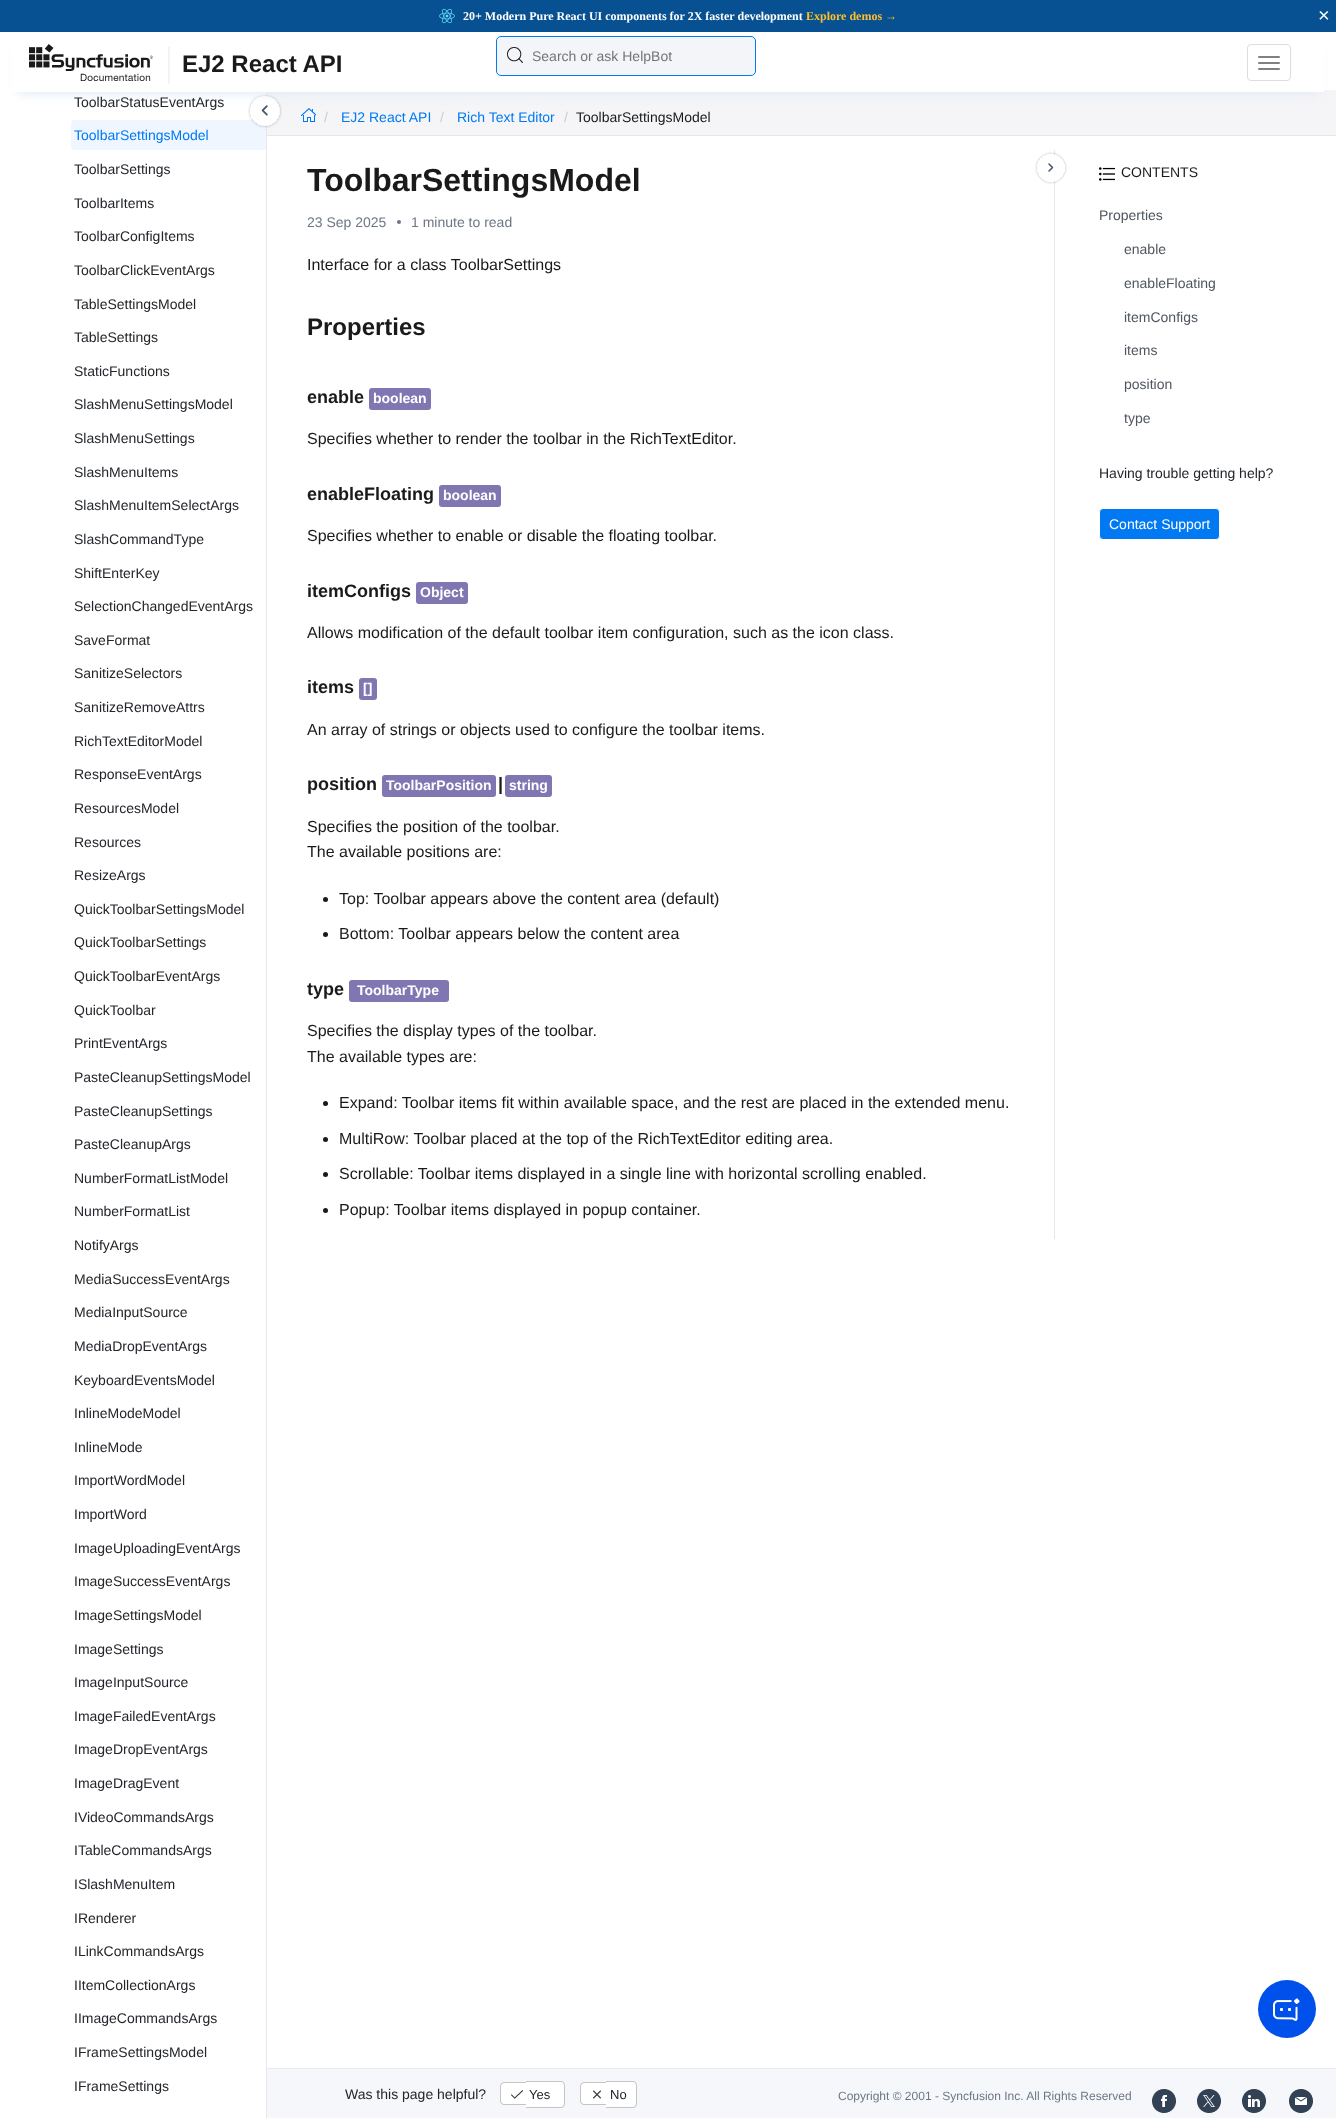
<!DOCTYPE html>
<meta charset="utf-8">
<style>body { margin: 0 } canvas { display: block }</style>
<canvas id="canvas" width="1336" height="2118"></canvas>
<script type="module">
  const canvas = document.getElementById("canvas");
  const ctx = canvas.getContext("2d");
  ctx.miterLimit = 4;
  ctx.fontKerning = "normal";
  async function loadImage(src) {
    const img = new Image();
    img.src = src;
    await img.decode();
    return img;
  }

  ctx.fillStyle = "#ffffff";
  ctx.fillRect(0, 0, 1336, 2118);
  ctx.fillStyle = "#f5f5f7";
  ctx.fillRect(267, 90, 1069, 45);
  ctx.drawImage(await loadImage("img4.png"), 301, 108, 15, 14);
  ctx.fillStyle = "#e7e7e7";
  ctx.fillRect(266, 92, 1, 2026);
  ctx.save();
  ctx.beginPath();
  ctx.rect(0, 20, 266, 2098);
  ctx.clip();
  ctx.fillStyle = "#eff6ff";
  ctx.beginPath();
  ctx.roundRect(71, 120, 196, 30, 4);
  ctx.fill();
  ctx.restore();
  ctx.drawImage(await loadImage("img5.png"), 248, 94, 34, 34);
  ctx.fillStyle = "#e2eaf5";
  ctx.filter = "blur(5.5px)";
  ctx.beginPath();
  ctx.rect(18, 46, 1300, 48);
  ctx.fill();
  ctx.filter = "none";
  ctx.fillStyle = "#075193";
  ctx.fillRect(0, 0, 1336, 32);
  ctx.drawImage(await loadImage("img1.png"), 439, 8, 16, 16);
  ctx.font = "bold 12px Liberation Serif";
  ctx.fillStyle = "#ffffff";
  ctx.fillText("20+ Modern Pure React UI components for 2X faster development", 463, 20);
  ctx.fillStyle = "#ffbf2a";
  ctx.fillText("Explore demos →", 806, 20);
  ctx.font = "20px Liberation Sans";
  ctx.fillStyle = "#ffffff";
  ctx.fillText("×", 1318, 22);
  ctx.fillRect(12, 39, 1312, 53);
  ctx.drawImage(await loadImage("img2.png"), 29, 44, 141, 40);
  ctx.font = "bold 24px Liberation Sans";
  ctx.fillStyle = "#1a1a1a";
  ctx.fillText("EJ2 React API", 182, 72);
  ctx.fillStyle = "#f4f5f8";
  ctx.beginPath();
  ctx.roundRect(496, 36, 260, 40, 5);
  ctx.fill();
  ctx.drawImage(await loadImage("img3.png"), 507, 47, 16, 16);
  ctx.beginPath();
  ctx.roundRect(496.5, 36.5, 259, 39, 4.5);
  ctx.strokeStyle = "#0079f3";
  ctx.stroke();
  ctx.font = "14px Liberation Sans";
  ctx.fillStyle = "#757575";
  ctx.fillText("Search or ask HelpBot", 532, 61);
  ctx.beginPath();
  ctx.roundRect(1247.5, 44.5, 43, 36, 3.5);
  ctx.strokeStyle = "#dddddd";
  ctx.stroke();
  ctx.fillStyle = "#808080";
  ctx.beginPath();
  ctx.roundRect(1258, 56, 22, 2, 1);
  ctx.fill();
  ctx.beginPath();
  ctx.roundRect(1258, 62, 22, 2, 1);
  ctx.fill();
  ctx.beginPath();
  ctx.roundRect(1258, 68, 22, 2, 1);
  ctx.fill();
  ctx.fillStyle = "#e7e7e7";
  ctx.fillRect(267, 135, 1069, 1);
  ctx.fillStyle = "#cccccc";
  ctx.fillText("/", 324, 122);
  ctx.fillStyle = "#0079f3";
  ctx.fillText("EJ2 React API", 341, 122);
  ctx.fillStyle = "#cccccc";
  ctx.fillText("/", 440, 122);
  ctx.fillStyle = "#0079f3";
  ctx.fillText("Rich Text Editor", 457, 122);
  ctx.fillStyle = "#cccccc";
  ctx.fillText("/", 564, 122);
  ctx.fillStyle = "#1a1a1a";
  ctx.fillText("ToolbarSettingsModel", 576, 122);
  ctx.fillStyle = "#22252a";
  ctx.fillText("ToolbarStatusEventArgs", 74, 107);
  ctx.fillStyle = "#0079f3";
  ctx.fillText("ToolbarSettingsModel", 74, 140);
  ctx.fillStyle = "#22252a";
  ctx.fillText("ToolbarSettings", 74, 174);
  ctx.fillText("ToolbarItems", 74, 208);
  ctx.fillText("ToolbarConfigItems", 74, 241);
  ctx.fillText("ToolbarClickEventArgs", 74, 275);
  ctx.fillText("TableSettingsModel", 74, 309);
  ctx.fillText("TableSettings", 74, 342);
  ctx.fillText("StaticFunctions", 74, 376);
  ctx.fillText("SlashMenuSettingsModel", 74, 409);
  ctx.fillText("SlashMenuSettings", 74, 443);
  ctx.fillText("SlashMenuItems", 74, 477);
  ctx.fillText("SlashMenuItemSelectArgs", 74, 510);
  ctx.fillText("SlashCommandType", 74, 544);
  ctx.fillText("ShiftEnterKey", 74, 578);
  ctx.fillText("SelectionChangedEventArgs", 74, 611);
  ctx.fillText("SaveFormat", 74, 645);
  ctx.fillText("SanitizeSelectors", 74, 678);
  ctx.fillText("SanitizeRemoveAttrs", 74, 712);
  ctx.fillText("RichTextEditorModel", 74, 746);
  ctx.fillText("ResponseEventArgs", 74, 779);
  ctx.fillText("ResourcesModel", 74, 813);
  ctx.fillText("Resources", 74, 847);
  ctx.fillText("ResizeArgs", 74, 880);
  ctx.fillText("QuickToolbarSettingsModel", 74, 914);
  ctx.fillText("QuickToolbarSettings", 74, 947);
  ctx.fillText("QuickToolbarEventArgs", 74, 981);
  ctx.fillText("QuickToolbar", 74, 1015);
  ctx.fillText("PrintEventArgs", 74, 1048);
  ctx.fillText("PasteCleanupSettingsModel", 74, 1082);
  ctx.fillText("PasteCleanupSettings", 74, 1116);
  ctx.fillText("PasteCleanupArgs", 74, 1149);
  ctx.fillText("NumberFormatListModel", 74, 1183);
  ctx.fillText("NumberFormatList", 74, 1216);
  ctx.fillText("NotifyArgs", 74, 1250);
  ctx.fillText("MediaSuccessEventArgs", 74, 1284);
  ctx.fillText("MediaInputSource", 74, 1317);
  ctx.fillText("MediaDropEventArgs", 74, 1351);
  ctx.fillText("KeyboardEventsModel", 74, 1385);
  ctx.fillText("InlineModeModel", 74, 1418);
  ctx.fillText("InlineMode", 74, 1452);
  ctx.fillText("ImportWordModel", 74, 1485);
  ctx.fillText("ImportWord", 74, 1519);
  ctx.fillText("ImageUploadingEventArgs", 74, 1553);
  ctx.fillText("ImageSuccessEventArgs", 74, 1586);
  ctx.fillText("ImageSettingsModel", 74, 1620);
  ctx.fillText("ImageSettings", 74, 1654);
  ctx.fillText("ImageInputSource", 74, 1687);
  ctx.fillText("ImageFailedEventArgs", 74, 1721);
  ctx.fillText("ImageDropEventArgs", 74, 1754);
  ctx.fillText("ImageDragEvent", 74, 1788);
  ctx.fillText("IVideoCommandsArgs", 74, 1822);
  ctx.fillText("ITableCommandsArgs", 74, 1855);
  ctx.fillText("ISlashMenuItem", 74, 1889);
  ctx.fillText("IRenderer", 74, 1923);
  ctx.fillText("ILinkCommandsArgs", 74, 1956);
  ctx.fillText("IItemCollectionArgs", 74, 1990);
  ctx.fillText("IImageCommandsArgs", 74, 2023);
  ctx.fillText("IFrameSettingsModel", 74, 2057);
  ctx.fillText("IFrameSettings", 74, 2091);
  ctx.fillStyle = "#e7e7e7";
  ctx.fillRect(1054, 150, 1, 1089);
  ctx.font = "bold 32px Liberation Sans";
  ctx.fillStyle = "#1a1a1a";
  ctx.fillText("ToolbarSettingsModel", 307, 191);
  ctx.font = "14px Liberation Sans";
  ctx.fillStyle = "#6c7786";
  ctx.fillText("23 Sep 2025", 307, 227);
  ctx.beginPath();
  ctx.arc(399, 222, 2, 0, Math.PI * 2);
  ctx.fill();
  ctx.fillText("1 minute to read", 411, 227);
  ctx.font = "16px Liberation Sans";
  ctx.fillStyle = "#1a1a1a";
  ctx.fillText("Interface for a class ToolbarSettings", 307, 270);
  ctx.font = "bold 24px Liberation Sans";
  ctx.fillText("Properties", 307, 335);
  ctx.font = "bold 18px Liberation Sans";
  ctx.fillText("enable", 307, 403);
  ctx.fillStyle = "#8076b2";
  ctx.beginPath();
  ctx.roundRect(369, 388, 62, 22, 3);
  ctx.fill();
  ctx.font = "bold 14px Liberation Sans";
  ctx.fillStyle = "#ffffff";
  ctx.fillText("boolean", 373, 403);
  ctx.font = "16px Liberation Sans";
  ctx.fillStyle = "#1a1a1a";
  ctx.fillText("Specifies whether to render the toolbar in the RichTextEditor.", 307, 444);
  ctx.font = "bold 18px Liberation Sans";
  ctx.fillText("enableFloating", 307, 500);
  ctx.fillStyle = "#8076b2";
  ctx.beginPath();
  ctx.roundRect(439, 485, 62, 22, 3);
  ctx.fill();
  ctx.font = "bold 14px Liberation Sans";
  ctx.fillStyle = "#ffffff";
  ctx.fillText("boolean", 443, 500);
  ctx.font = "16px Liberation Sans";
  ctx.fillStyle = "#1a1a1a";
  ctx.fillText("Specifies whether to enable or disable the floating toolbar.", 307, 541);
  ctx.font = "bold 18px Liberation Sans";
  ctx.fillText("itemConfigs", 307, 597);
  ctx.fillStyle = "#8076b2";
  ctx.beginPath();
  ctx.roundRect(416, 582, 52, 22, 3);
  ctx.fill();
  ctx.font = "bold 14px Liberation Sans";
  ctx.fillStyle = "#ffffff";
  ctx.fillText("Object", 420, 597);
  ctx.font = "16px Liberation Sans";
  ctx.fillStyle = "#1a1a1a";
  ctx.fillText("Allows modification of the default toolbar item configuration, such as the icon class.", 307, 638);
  ctx.font = "bold 18px Liberation Sans";
  ctx.fillText("items", 307, 693);
  ctx.fillStyle = "#8076b2";
  ctx.beginPath();
  ctx.roundRect(359, 678, 18, 22, 3);
  ctx.fill();
  ctx.font = "bold 14px Liberation Sans";
  ctx.fillStyle = "#ffffff";
  ctx.fillText("[]", 363, 693);
  ctx.font = "16px Liberation Sans";
  ctx.fillStyle = "#1a1a1a";
  ctx.fillText("An array of strings or objects used to configure the toolbar items.", 307, 735);
  ctx.font = "bold 18px Liberation Sans";
  ctx.fillText("position", 307, 790);
  ctx.fillStyle = "#8076b2";
  ctx.beginPath();
  ctx.roundRect(382, 775, 114, 22, 3);
  ctx.fill();
  ctx.font = "bold 14px Liberation Sans";
  ctx.fillStyle = "#ffffff";
  ctx.fillText("ToolbarPosition", 386, 790);
  ctx.font = "bold 18px Liberation Sans";
  ctx.fillStyle = "#1a1a1a";
  ctx.fillText("|", 498, 790);
  ctx.fillStyle = "#8076b2";
  ctx.beginPath();
  ctx.roundRect(505, 775, 47, 22, 3);
  ctx.fill();
  ctx.font = "bold 14px Liberation Sans";
  ctx.fillStyle = "#ffffff";
  ctx.fillText("string", 509, 790);
  ctx.font = "16px Liberation Sans";
  ctx.fillStyle = "#1a1a1a";
  ctx.fillText("Specifies the position of the toolbar.", 307, 832);
  ctx.fillText("The available positions are:", 307, 857);
  ctx.beginPath();
  ctx.arc(325.5, 899.5, 2.5, 0, Math.PI * 2);
  ctx.fill();
  ctx.fillText("Top: Toolbar appears above the content area (default)", 339, 904);
  ctx.beginPath();
  ctx.arc(325.5, 934.5, 2.5, 0, Math.PI * 2);
  ctx.fill();
  ctx.fillText("Bottom: Toolbar appears below the content area", 339, 939);
  ctx.font = "bold 18px Liberation Sans";
  ctx.fillText("type", 307, 995);
  ctx.fillStyle = "#8076b2";
  ctx.beginPath();
  ctx.roundRect(349, 980, 100, 22, 3);
  ctx.fill();
  ctx.font = "bold 14px Liberation Sans";
  ctx.fillStyle = "#ffffff";
  ctx.fillText("ToolbarType", 357, 995);
  ctx.font = "16px Liberation Sans";
  ctx.fillStyle = "#1a1a1a";
  ctx.fillText("Specifies the display types of the toolbar.", 307, 1036);
  ctx.fillText("The available types are:", 307, 1062);
  ctx.beginPath();
  ctx.arc(325.5, 1103.5, 2.5, 0, Math.PI * 2);
  ctx.fill();
  ctx.fillText("Expand: Toolbar items fit within available space, and the rest are placed in the extended menu.", 339, 1108);
  ctx.beginPath();
  ctx.arc(325.5, 1139.5, 2.5, 0, Math.PI * 2);
  ctx.fill();
  ctx.fillText("MultiRow: Toolbar placed at the top of the RichTextEditor editing area.", 339, 1144);
  ctx.beginPath();
  ctx.arc(325.5, 1174.5, 2.5, 0, Math.PI * 2);
  ctx.fill();
  ctx.fillText("Scrollable: Toolbar items displayed in a single line with horizontal scrolling enabled.", 339, 1179);
  ctx.beginPath();
  ctx.arc(325.5, 1210.5, 2.5, 0, Math.PI * 2);
  ctx.fill();
  ctx.fillText("Popup: Toolbar items displayed in popup container.", 339, 1215);
  ctx.drawImage(await loadImage("img6.png"), 1035, 152, 32, 32);
  ctx.drawImage(await loadImage("img7.png"), 1099, 167, 16, 14);
  ctx.font = "14px Liberation Sans";
  ctx.fillText("CONTENTS", 1121, 177);
  ctx.fillStyle = "#50565f";
  ctx.fillText("Properties", 1099, 220);
  ctx.fillText("enable", 1124, 254);
  ctx.fillText("enableFloating", 1124, 288);
  ctx.fillText("itemConfigs", 1124, 322);
  ctx.fillText("items", 1124, 355);
  ctx.fillText("position", 1124, 389);
  ctx.fillText("type", 1124, 423);
  ctx.fillStyle = "#22252a";
  ctx.fillText("Having trouble getting help?", 1099, 478);
  ctx.fillStyle = "#0079f3";
  ctx.beginPath();
  ctx.roundRect(1099.5, 508.5, 120, 31, 3.5);
  ctx.fill();
  ctx.strokeStyle = "#ffffff";
  ctx.stroke();
  ctx.fillStyle = "#ffffff";
  ctx.fillText("Contact Support", 1109, 529);
  ctx.fillStyle = "#0050eb";
  ctx.beginPath();
  ctx.arc(1287, 2009, 29, 0, Math.PI * 2);
  ctx.fill();
  ctx.drawImage(await loadImage("img8.png"), 1273, 1998, 27, 23);
  ctx.fillStyle = "#f5f7fa";
  ctx.fillRect(267, 2069, 1069, 49);
  ctx.fillStyle = "#eaeaea";
  ctx.fillRect(267, 2068, 1069, 1);
  ctx.fillStyle = "#22252a";
  ctx.fillText("Was this page helpful?", 345, 2099);
  ctx.fillStyle = "#ffffff";
  ctx.beginPath();
  ctx.roundRect(500, 2082, 26, 23, [4, 0, 0, 4]);
  ctx.fill();
  ctx.fillStyle = "#c5c5c5";
  ctx.beginPath();
  ctx.moveTo(504, 2082);
  ctx.lineTo(526, 2082);
  ctx.lineTo(526, 2105);
  ctx.lineTo(504, 2105);
  ctx.bezierCurveTo(502, 2105, 500, 2103, 500, 2101);
  ctx.lineTo(500, 2086);
  ctx.bezierCurveTo(500, 2084, 502, 2082, 504, 2082);
  ctx.closePath();
  ctx.moveTo(504, 2083);
  ctx.lineTo(526, 2083);
  ctx.lineTo(526, 2104);
  ctx.lineTo(504, 2104);
  ctx.bezierCurveTo(502.5, 2104, 501, 2102.5, 501, 2101);
  ctx.lineTo(501, 2086);
  ctx.bezierCurveTo(501, 2084.5, 502.5, 2083, 504, 2083);
  ctx.closePath();
  ctx.fill("evenodd");
  ctx.fillStyle = "#ffffff";
  ctx.beginPath();
  ctx.roundRect(526, 2081, 39, 27, [0, 4, 4, 0]);
  ctx.fill();
  ctx.fillStyle = "#c5c5c5";
  ctx.beginPath();
  ctx.moveTo(526, 2081);
  ctx.lineTo(561, 2081);
  ctx.bezierCurveTo(563, 2081, 565, 2083, 565, 2085);
  ctx.lineTo(565, 2104);
  ctx.bezierCurveTo(565, 2106, 563, 2108, 561, 2108);
  ctx.lineTo(526, 2108);
  ctx.closePath();
  ctx.moveTo(526, 2082);
  ctx.lineTo(561, 2082);
  ctx.bezierCurveTo(562.5, 2082, 564, 2083.5, 564, 2085);
  ctx.lineTo(564, 2104);
  ctx.bezierCurveTo(564, 2105.5, 562.5, 2107, 561, 2107);
  ctx.lineTo(526, 2107);
  ctx.closePath();
  ctx.fill("evenodd");
  ctx.drawImage(await loadImage("img9.png"), 511, 2090, 12, 9);
  ctx.font = "13px Liberation Sans";
  ctx.fillStyle = "#22252a";
  ctx.fillText("Yes", 529, 2099);
  ctx.fillStyle = "#ffffff";
  ctx.beginPath();
  ctx.roundRect(580, 2082, 26, 23, [4, 0, 0, 4]);
  ctx.fill();
  ctx.fillStyle = "#c5c5c5";
  ctx.beginPath();
  ctx.moveTo(584, 2082);
  ctx.lineTo(606, 2082);
  ctx.lineTo(606, 2105);
  ctx.lineTo(584, 2105);
  ctx.bezierCurveTo(582, 2105, 580, 2103, 580, 2101);
  ctx.lineTo(580, 2086);
  ctx.bezierCurveTo(580, 2084, 582, 2082, 584, 2082);
  ctx.closePath();
  ctx.moveTo(584, 2083);
  ctx.lineTo(606, 2083);
  ctx.lineTo(606, 2104);
  ctx.lineTo(584, 2104);
  ctx.bezierCurveTo(582.5, 2104, 581, 2102.5, 581, 2101);
  ctx.lineTo(581, 2086);
  ctx.bezierCurveTo(581, 2084.5, 582.5, 2083, 584, 2083);
  ctx.closePath();
  ctx.fill("evenodd");
  ctx.fillStyle = "#ffffff";
  ctx.beginPath();
  ctx.roundRect(606, 2081, 31, 27, [0, 4, 4, 0]);
  ctx.fill();
  ctx.fillStyle = "#c5c5c5";
  ctx.beginPath();
  ctx.moveTo(606, 2081);
  ctx.lineTo(633, 2081);
  ctx.bezierCurveTo(635, 2081, 637, 2083, 637, 2085);
  ctx.lineTo(637, 2104);
  ctx.bezierCurveTo(637, 2106, 635, 2108, 633, 2108);
  ctx.lineTo(606, 2108);
  ctx.closePath();
  ctx.moveTo(606, 2082);
  ctx.lineTo(633, 2082);
  ctx.bezierCurveTo(634.5, 2082, 636, 2083.5, 636, 2085);
  ctx.lineTo(636, 2104);
  ctx.bezierCurveTo(636, 2105.5, 634.5, 2107, 633, 2107);
  ctx.lineTo(606, 2107);
  ctx.closePath();
  ctx.fill("evenodd");
  ctx.drawImage(await loadImage("img10.png"), 593, 2090, 8, 9);
  ctx.fillStyle = "#22252a";
  ctx.fillText("No", 610, 2099);
  ctx.font = "12px Liberation Sans";
  ctx.fillStyle = "#6c7786";
  ctx.fillText("Copyright © 2001 - Syncfusion Inc. All Rights Reserved", 838, 2100);
  ctx.drawImage(await loadImage("img11.png"), 1152, 2089, 24, 24);
  ctx.drawImage(await loadImage("img12.png"), 1197, 2089, 24, 24);
  ctx.drawImage(await loadImage("img13.png"), 1242, 2089, 24, 24);
  ctx.drawImage(await loadImage("img14.png"), 1289, 2089, 24, 24);
</script>
